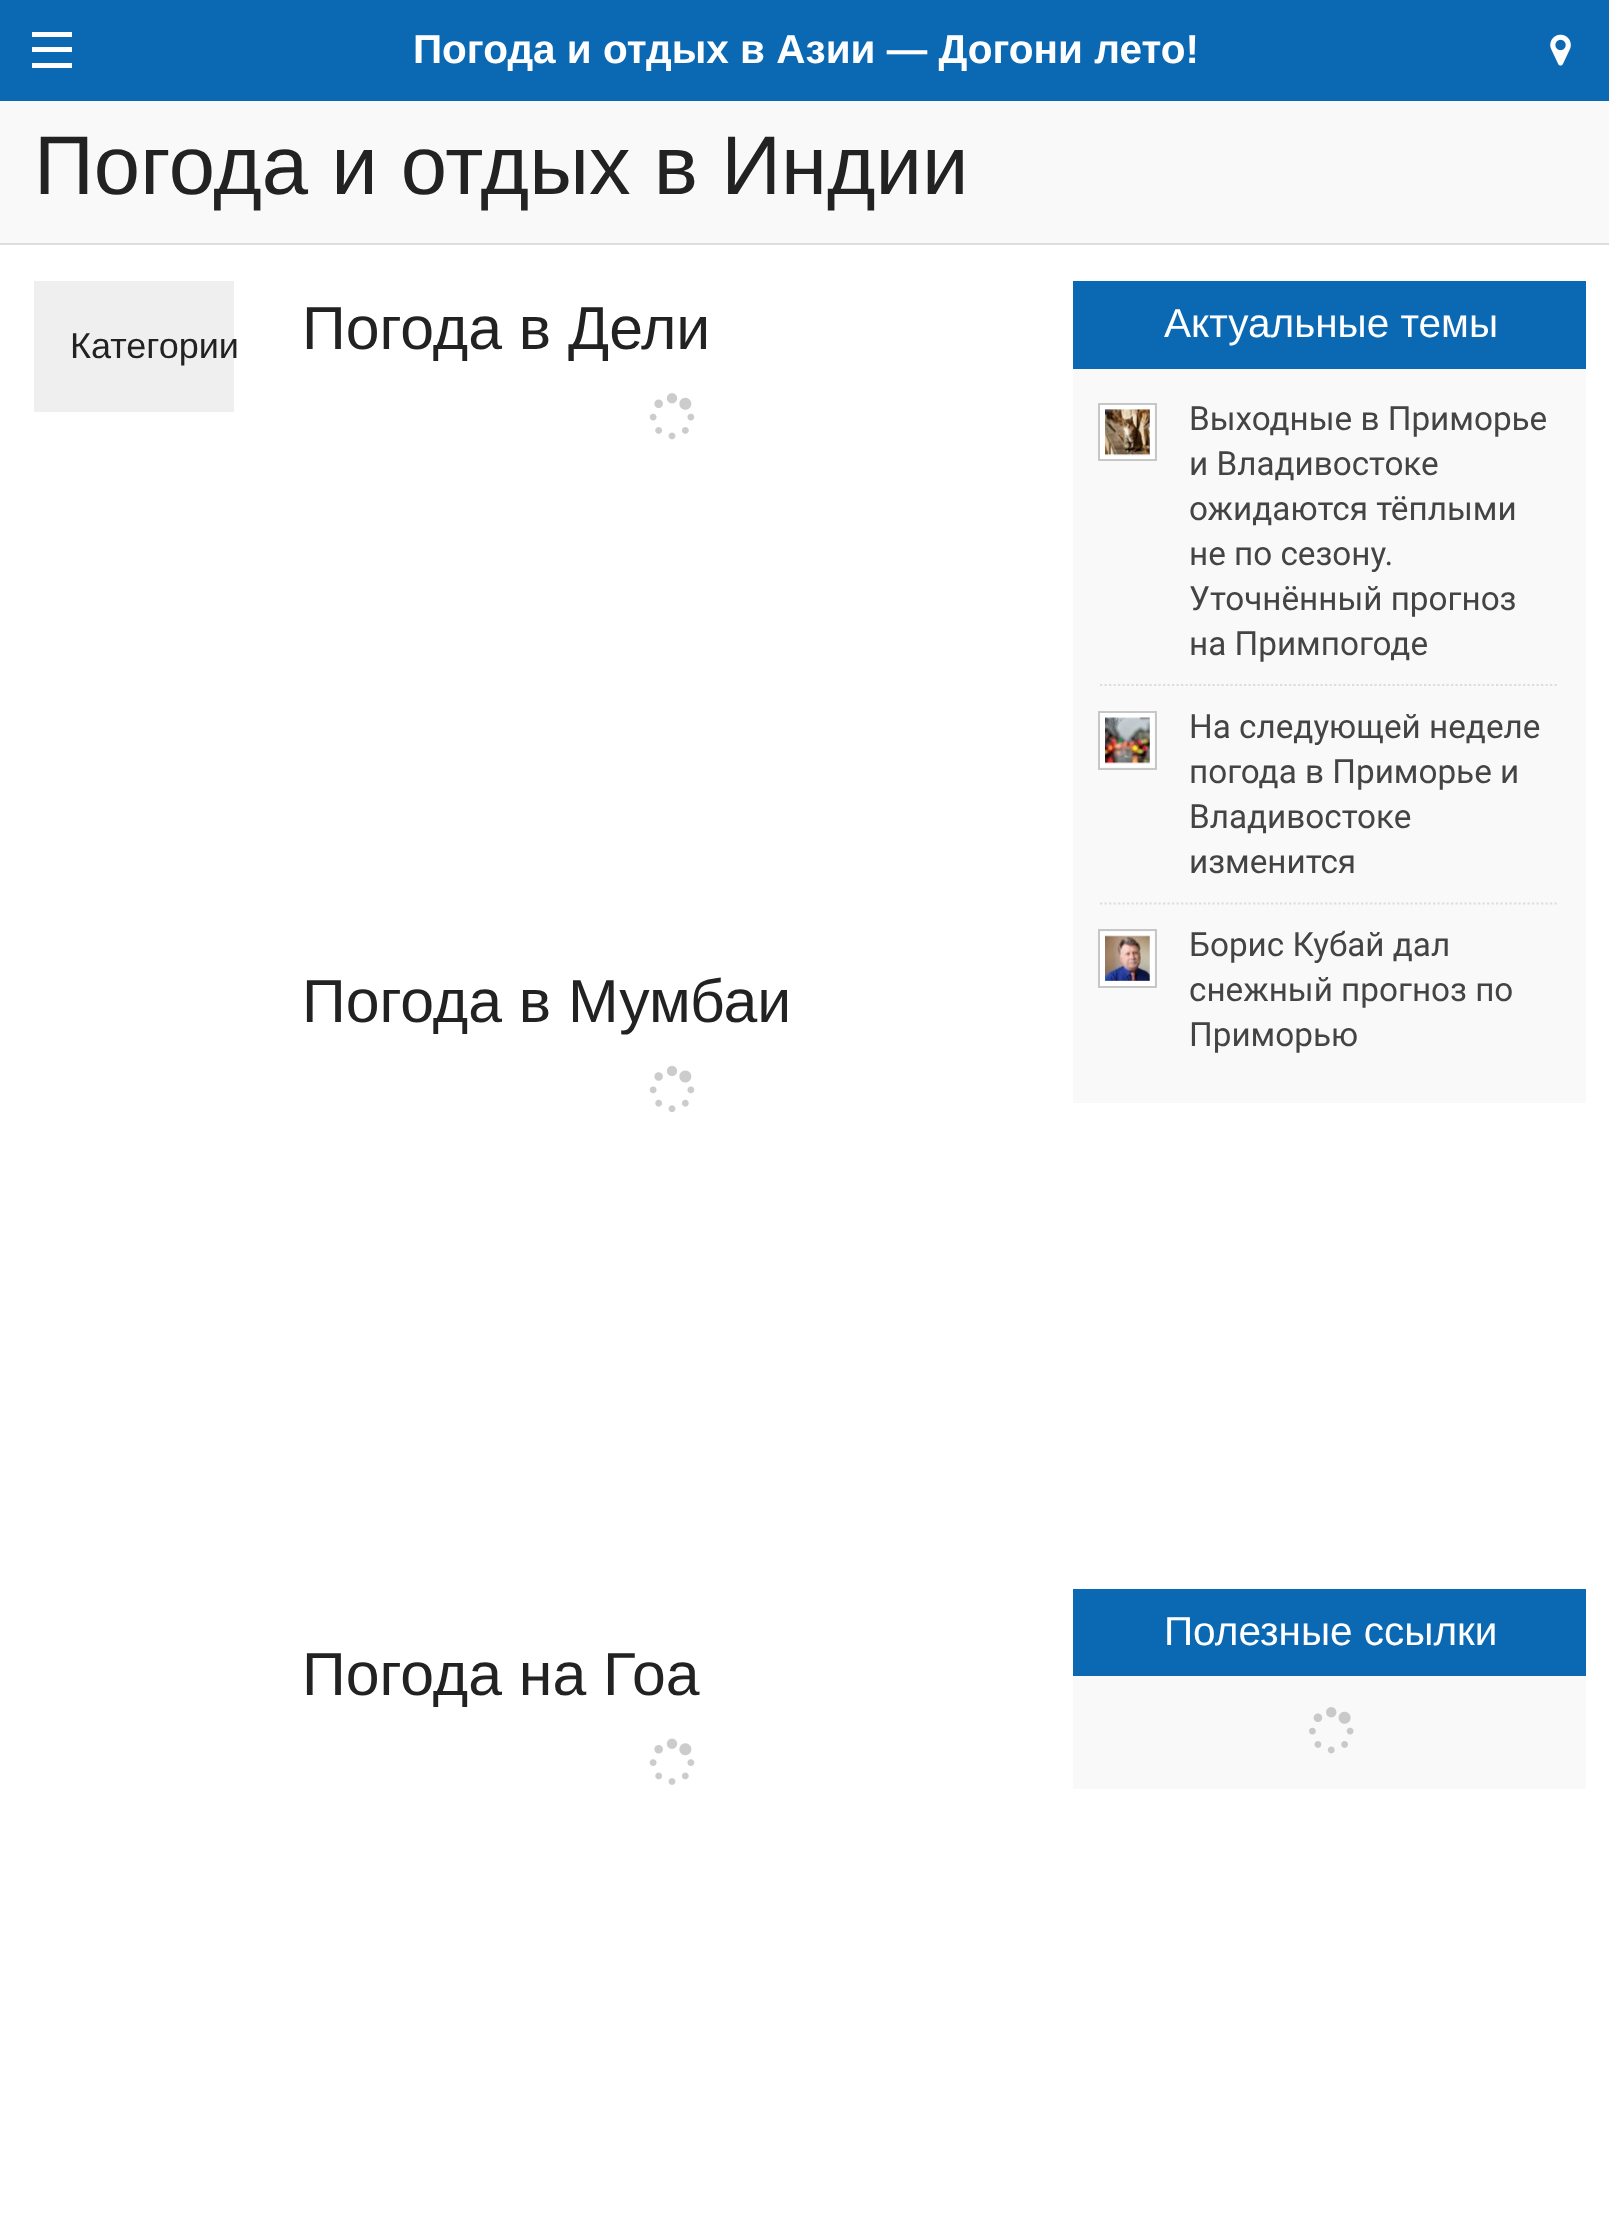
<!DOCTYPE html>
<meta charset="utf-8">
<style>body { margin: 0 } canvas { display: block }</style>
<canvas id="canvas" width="1609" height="2214"></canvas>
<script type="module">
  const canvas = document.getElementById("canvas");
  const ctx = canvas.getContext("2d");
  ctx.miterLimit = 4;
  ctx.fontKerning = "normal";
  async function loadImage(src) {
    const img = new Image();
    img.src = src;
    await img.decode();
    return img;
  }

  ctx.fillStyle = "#ffffff";
  ctx.fillRect(0, 0, 1609, 2214);
  ctx.fillStyle = "#0b68b3";
  ctx.fillRect(0, 0, 1609, 101);
  ctx.fillStyle = "#ffffff";
  ctx.fillRect(32, 63, 40, 5);
  ctx.fillRect(32, 47, 40, 5);
  ctx.fillRect(32, 32, 40, 5);
  ctx.font = "bold 40.5px Liberation Sans";
  ctx.fillText("Погода и отдых в Азии — Догони лето!", 413, 63);
  ctx.drawImage(await loadImage("img1.png"), 1550, 34, 21, 32);
  ctx.fillStyle = "#f9f9f9";
  ctx.fillRect(0, 101, 1609, 142);
  ctx.fillStyle = "#dddddd";
  ctx.fillRect(0, 243, 1609, 2);
  ctx.font = "83.25px Liberation Sans";
  ctx.fillStyle = "#222222";
  ctx.fillText("Погода и отдых в Индии", 34, 194);
  ctx.fillStyle = "#efefef";
  ctx.fillRect(34, 281, 200, 131);
  ctx.font = "36px Liberation Sans";
  ctx.fillStyle = "#222222";
  ctx.fillText("Категории", 70, 358);
  ctx.font = "60.75px Liberation Sans";
  ctx.fillText("Погода в Дели", 302, 349);
  ctx.drawImage(await loadImage("img2.png"), 649, 393, 46, 47);
  ctx.fillText("Погода в Мумбаи", 302, 1022);
  ctx.drawImage(await loadImage("img3.png"), 649, 1065, 46, 47);
  ctx.fillText("Погода на Гоа", 302, 1695);
  ctx.drawImage(await loadImage("img4.png"), 649, 1738, 46, 47);
  ctx.fillStyle = "#0b68b3";
  ctx.fillRect(1073, 281, 513, 88);
  ctx.font = "40.5px Liberation Sans";
  ctx.fillStyle = "#ffffff";
  ctx.fillText("Актуальные темы", 1164, 337);
  ctx.fillStyle = "#f9f9f9";
  ctx.fillRect(1073, 369, 513, 734);
  ctx.beginPath();
  ctx.moveTo(1100, 685);
  ctx.lineTo(1559, 685);
  ctx.strokeStyle = "#dddddd";
  ctx.lineWidth = 2.2;
  ctx.setLineDash([2.25, 2.25]);
  ctx.stroke();
  ctx.strokeStyle = "#c7c7c7";
  ctx.lineWidth = 2;
  ctx.setLineDash([]);
  ctx.strokeRect(1099, 404, 57, 56);
  ctx.strokeStyle = "#ffffff";
  ctx.lineWidth = 5;
  ctx.strokeRect(1102.5, 407.5, 49, 49);
  ctx.drawImage(await loadImage("img5.png"), 1105, 409, 45, 47);
  ctx.font = "33.25px Roboto";
  ctx.fillStyle = "#444444";
  ctx.fillText("Выходные в Приморье", 1189, 430);
  ctx.fillText("и Владивостоке", 1189, 475);
  ctx.fillText("ожидаются тёплыми", 1189, 520);
  ctx.fillText("не по сезону.", 1189, 565);
  ctx.fillText("Уточнённый прогноз", 1189, 610);
  ctx.fillText("на Примпогоде", 1189, 655);
  ctx.beginPath();
  ctx.moveTo(1100, 903.5);
  ctx.lineTo(1559, 903.5);
  ctx.strokeStyle = "#dddddd";
  ctx.lineWidth = 2.2;
  ctx.setLineDash([2.25, 2.25]);
  ctx.stroke();
  ctx.strokeStyle = "#c7c7c7";
  ctx.lineWidth = 2;
  ctx.setLineDash([]);
  ctx.strokeRect(1099, 712, 57, 57);
  ctx.strokeStyle = "#ffffff";
  ctx.lineWidth = 5;
  ctx.strokeRect(1102.5, 715.5, 49, 49);
  ctx.drawImage(await loadImage("img6.png"), 1105, 717, 45, 47);
  ctx.fillText("На следующей неделе", 1189, 738);
  ctx.fillText("погода в Приморье и", 1189, 783);
  ctx.fillText("Владивостоке", 1189, 828);
  ctx.fillText("изменится", 1189, 873);
  ctx.strokeStyle = "#c7c7c7";
  ctx.lineWidth = 2;
  ctx.strokeRect(1099, 930, 57, 57);
  ctx.strokeStyle = "#ffffff";
  ctx.lineWidth = 5;
  ctx.strokeRect(1102.5, 934.5, 49, 49);
  ctx.drawImage(await loadImage("img7.png"), 1105, 935, 45, 46);
  ctx.fillText("Борис Кубай дал", 1189, 956);
  ctx.fillText("снежный прогноз по", 1189, 1001);
  ctx.fillText("Приморью", 1189, 1046);
  ctx.fillStyle = "#0b68b3";
  ctx.fillRect(1073, 1589, 513, 87);
  ctx.font = "40.5px Liberation Sans";
  ctx.fillStyle = "#ffffff";
  ctx.fillText("Полезные ссылки", 1164, 1645);
  ctx.fillStyle = "#f9f9f9";
  ctx.fillRect(1073, 1676, 513, 113);
  ctx.drawImage(await loadImage("img8.png"), 1309, 1707, 45, 47);
</script>
